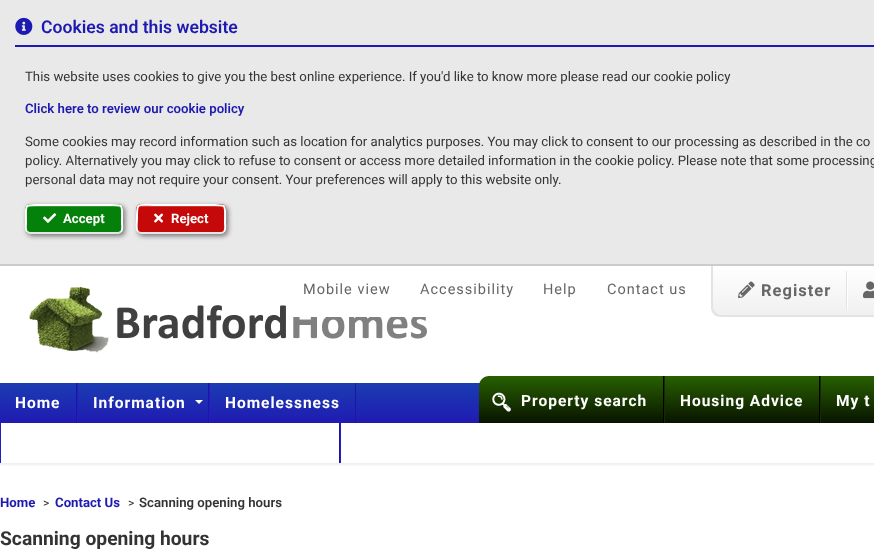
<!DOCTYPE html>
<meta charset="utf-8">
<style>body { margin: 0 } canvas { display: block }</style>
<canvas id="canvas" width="874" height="556"></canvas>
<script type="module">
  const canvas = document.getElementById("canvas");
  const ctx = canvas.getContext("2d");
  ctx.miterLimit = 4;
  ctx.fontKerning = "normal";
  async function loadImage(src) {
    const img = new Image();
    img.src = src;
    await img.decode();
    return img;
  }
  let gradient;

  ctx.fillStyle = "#ffffff";
  ctx.fillRect(0, 0, 874, 556);
  ctx.fillStyle = "#e9e9e9";
  ctx.fillRect(0, 0, 874, 264);
  ctx.fillStyle = "#cdcccc";
  ctx.fillRect(0, 264, 874, 2);
  ctx.fillStyle = "#1d1ab2";
  ctx.fillRect(15, 45, 859, 2);
  ctx.drawImage(await loadImage("img1.png"), 15, 17, 18, 18);
  ctx.font = "600 17.6px Roboto";
  ctx.fillText("Cookies and this website", 41, 33);
  ctx.font = "13.2px Roboto";
  ctx.fillStyle = "#333333";
  ctx.fillText("This website uses cookies to give you the best online experience. If you'd like to know more please read our cookie policy", 25, 81);
  ctx.font = "600 13.2px Roboto";
  ctx.fillStyle = "#1d1ab2";
  ctx.fillText("Click here to review our cookie policy", 25, 113);
  ctx.font = "13.2px Roboto";
  ctx.fillStyle = "#333333";
  ctx.fillText("Some cookies may record information such as location for analytics purposes. You may click to consent to our processing as described in the co", 25, 146);
  ctx.fillText("policy. Alternatively you may click to refuse to consent or access more detailed information in the cookie policy. Please note that some processing", 25, 165);
  ctx.fillText("personal data may not require your consent. Your preferences will apply to this website only.", 25, 184);
  ctx.fillStyle = "rgba(0, 0, 0, 0.5)";
  ctx.filter = "blur(2.5px)";
  ctx.beginPath();
  ctx.roundRect(27, 206, 98, 30, 5);
  ctx.fill();
  ctx.filter = "none";
  ctx.fillStyle = "#04810a";
  ctx.beginPath();
  ctx.roundRect(25, 204, 98, 30, 5);
  ctx.fill();
  ctx.fillStyle = "#369a3b";
  ctx.beginPath();
  ctx.moveTo(30, 207);
  ctx.lineTo(118, 207);
  ctx.bezierCurveTo(120, 207, 121, 208, 121, 210);
  ctx.bezierCurveTo(121, 202, 107, 206, 103, 206);
  ctx.lineTo(45, 206);
  ctx.bezierCurveTo(41, 206, 27, 202, 27, 210);
  ctx.bezierCurveTo(27, 208, 28, 207, 30, 207);
  ctx.closePath();
  ctx.fill();
  ctx.beginPath();
  ctx.moveTo(121, 232);
  ctx.lineTo(118.5, 233);
  ctx.lineTo(29.5, 233);
  ctx.lineTo(27, 232);
  ctx.strokeStyle = "#e6e6e6";
  ctx.lineWidth = 2;
  ctx.stroke();
  ctx.beginPath();
  ctx.moveTo(27, 232);
  ctx.bezierCurveTo(25, 229.5, 26, 225, 26, 222.5);
  ctx.bezierCurveTo(26, 202, 23, 205, 44.5, 205);
  ctx.lineTo(103.5, 205);
  ctx.bezierCurveTo(125, 205, 122, 202, 122, 222.5);
  ctx.bezierCurveTo(122, 225, 123, 229.5, 121, 232);
  ctx.strokeStyle = "#ffffff";
  ctx.stroke();
  ctx.drawImage(await loadImage("img2.png"), 43, 213, 14, 10);
  ctx.font = "bold 13.2px Roboto";
  ctx.fillStyle = "#ffffff";
  ctx.fillText("Accept", 63, 223);
  ctx.fillStyle = "rgba(0, 0, 0, 0.5)";
  ctx.filter = "blur(2.5px)";
  ctx.beginPath();
  ctx.roundRect(138, 206, 90, 30, 5);
  ctx.fill();
  ctx.filter = "none";
  ctx.fillStyle = "#c50909";
  ctx.beginPath();
  ctx.roundRect(136, 204, 90, 30, 5);
  ctx.fill();
  ctx.fillStyle = "#d13a3a";
  ctx.beginPath();
  ctx.moveTo(141, 207);
  ctx.lineTo(221, 207);
  ctx.bezierCurveTo(223, 207, 224, 208, 224, 210);
  ctx.bezierCurveTo(224, 202, 211, 206, 208, 206);
  ctx.lineTo(154, 206);
  ctx.bezierCurveTo(151, 206, 138, 202, 138, 210);
  ctx.bezierCurveTo(138, 208, 139, 207, 141, 207);
  ctx.closePath();
  ctx.fill();
  ctx.beginPath();
  ctx.moveTo(224, 232);
  ctx.bezierCurveTo(223, 232.5, 222, 233, 221, 233);
  ctx.lineTo(141, 233);
  ctx.bezierCurveTo(140, 233, 139, 232.5, 138, 232);
  ctx.strokeStyle = "#e6e6e6";
  ctx.stroke();
  ctx.beginPath();
  ctx.moveTo(138, 232);
  ctx.bezierCurveTo(135.5, 229.5, 137, 222, 137, 219);
  ctx.bezierCurveTo(137, 202, 136, 205, 154.5, 205);
  ctx.lineTo(207.5, 205);
  ctx.bezierCurveTo(228, 205, 225, 202.5, 225, 222.5);
  ctx.bezierCurveTo(225, 225, 226, 229.5, 224, 232);
  ctx.strokeStyle = "#ffffff";
  ctx.stroke();
  ctx.drawImage(await loadImage("img3.png"), 154, 213, 10, 10);
  ctx.fillStyle = "#ffffff";
  ctx.fillText("Reject", 171, 223);
  ctx.drawImage(await loadImage("img4.png"), 29, 286, 398, 67);
  ctx.fillRect(293, 307, 133, 10);
  ctx.letterSpacing = "1px";
  ctx.font = "14.5px Roboto";
  ctx.fillStyle = "#666666";
  ctx.fillText("Mobile view", 303, 294);
  ctx.fillText("Accessibility", 420, 294);
  ctx.fillText("Help", 543, 294);
  ctx.fillText("Contact us", 607, 294);
  ctx.save();
  ctx.beginPath();
  ctx.moveTo(711, 266);
  ctx.lineTo(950, 266);
  ctx.lineTo(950, 317);
  ctx.lineTo(721, 317);
  ctx.bezierCurveTo(715.5, 317, 711, 312.5, 711, 307);
  ctx.closePath();
  ctx.clip();
  gradient = ctx.createLinearGradient(832, 266, 832, 315);
  gradient.addColorStop(0, "#ffffff");
  gradient.addColorStop(1, "#f0f0f0");
  ctx.fillStyle = gradient;
  ctx.fillRect(711, 266, 163, 49);
  ctx.restore();
  ctx.fillStyle = "#e3e3e3";
  ctx.beginPath();
  ctx.moveTo(711, 266);
  ctx.lineTo(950, 266);
  ctx.lineTo(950, 317);
  ctx.lineTo(721, 317);
  ctx.bezierCurveTo(715, 317, 711, 313, 711, 307);
  ctx.closePath();
  ctx.moveTo(713, 266);
  ctx.lineTo(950, 266);
  ctx.lineTo(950, 315);
  ctx.lineTo(721, 315);
  ctx.bezierCurveTo(717, 315, 713, 311, 713, 307);
  ctx.closePath();
  ctx.fill("evenodd");
  ctx.fillRect(846, 271, 1, 39);
  ctx.drawImage(await loadImage("img5.png"), 738, 281, 17, 18);
  ctx.font = "bold 16.5px Roboto";
  ctx.fillStyle = "#666666";
  ctx.fillText("Register", 761, 296);
  ctx.fillStyle = "#ffffff";
  ctx.fillRect(847, 271, 1, 39);
  ctx.drawImage(await loadImage("img6.png"), 863, 281, 11, 18);
  ctx.save();
  ctx.beginPath();
  ctx.rect(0, 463, 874, 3);
  ctx.clip();
  ctx.fillStyle = "rgba(0, 0, 0, 0.07)";
  ctx.filter = "blur(1px)";
  ctx.beginPath();
  ctx.rect(0, 378, 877, 87);
  ctx.fill();
  ctx.filter = "none";
  ctx.restore();
  gradient = ctx.createLinearGradient(470, 383, 470, 423);
  gradient.addColorStop(0, "#1a3db2");
  gradient.addColorStop(1, "#201ab2");
  ctx.fillStyle = gradient;
  ctx.fillRect(0, 383, 480, 40);
  ctx.fillStyle = "#1c179c";
  ctx.fillRect(76, 383, 1, 40);
  ctx.font = "bold 15.5px Roboto";
  ctx.fillStyle = "#ffffff";
  ctx.fillText("Home", 15, 408);
  ctx.fillStyle = "#1c179c";
  ctx.fillRect(208, 383, 1, 40);
  ctx.fillStyle = "#231dc8";
  ctx.fillRect(77, 383, 1, 40);
  ctx.fillStyle = "#ffffff";
  ctx.fillText("Information", 93, 408);
  ctx.beginPath();
  ctx.moveTo(195, 400);
  ctx.lineTo(203, 400);
  ctx.lineTo(199, 404);
  ctx.closePath();
  ctx.fill();
  ctx.fillStyle = "#1c179c";
  ctx.fillRect(355, 383, 1, 40);
  ctx.fillStyle = "#231dc8";
  ctx.fillRect(209, 383, 1, 40);
  ctx.fillStyle = "#ffffff";
  ctx.fillText("Homelessness", 225, 408);
  ctx.fillStyle = "#1c179c";
  ctx.fillRect(339, 423, 1, 40);
  ctx.fillStyle = "#231dc8";
  ctx.fillRect(0, 423, 1, 40);
  ctx.fillRect(340, 423, 1, 40);
  gradient = ctx.createLinearGradient(715, 376, 715, 423);
  gradient.addColorStop(0, "#286000");
  gradient.addColorStop(1, "#091400");
  ctx.fillStyle = gradient;
  ctx.beginPath();
  ctx.moveTo(489, 376);
  ctx.lineTo(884, 376);
  ctx.lineTo(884, 423);
  ctx.lineTo(479, 423);
  ctx.lineTo(479, 386);
  ctx.bezierCurveTo(479, 380.5, 483.5, 376, 489, 376);
  ctx.closePath();
  ctx.fill();
  ctx.fillStyle = "#000000";
  ctx.fillRect(663, 376, 1, 47);
  ctx.drawImage(await loadImage("img7.png"), 492, 392, 19, 20);
  ctx.fillStyle = "#ffffff";
  ctx.fillText("Property search", 521, 406);
  ctx.fillStyle = "#000000";
  ctx.fillRect(819, 376, 1, 47);
  ctx.fillStyle = "#142d00";
  ctx.fillRect(664, 376, 1, 47);
  ctx.fillStyle = "#ffffff";
  ctx.fillText("Housing Advice", 680, 406);
  ctx.fillStyle = "#142d00";
  ctx.fillRect(820, 376, 1, 47);
  ctx.fillStyle = "#ffffff";
  ctx.fillText("My t", 836, 406);
  ctx.letterSpacing = "0px";
  ctx.font = "bold 13.2px Roboto";
  ctx.fillStyle = "#1d1ab2";
  ctx.fillText("Home", 0, 507);
  ctx.font = "12px Roboto";
  ctx.fillStyle = "#333333";
  ctx.fillText(">", 43, 507);
  ctx.font = "bold 13.2px Roboto";
  ctx.fillStyle = "#1d1ab2";
  ctx.fillText("Contact Us", 55, 507);
  ctx.font = "12px Roboto";
  ctx.fillStyle = "#333333";
  ctx.fillText(">", 128, 507);
  ctx.font = "600 13.2px Roboto";
  ctx.fillText("Scanning opening hours", 139, 507);
  ctx.font = "bold 19.25px Roboto";
  ctx.fillText("Scanning opening hours", 0, 545);
</script>
